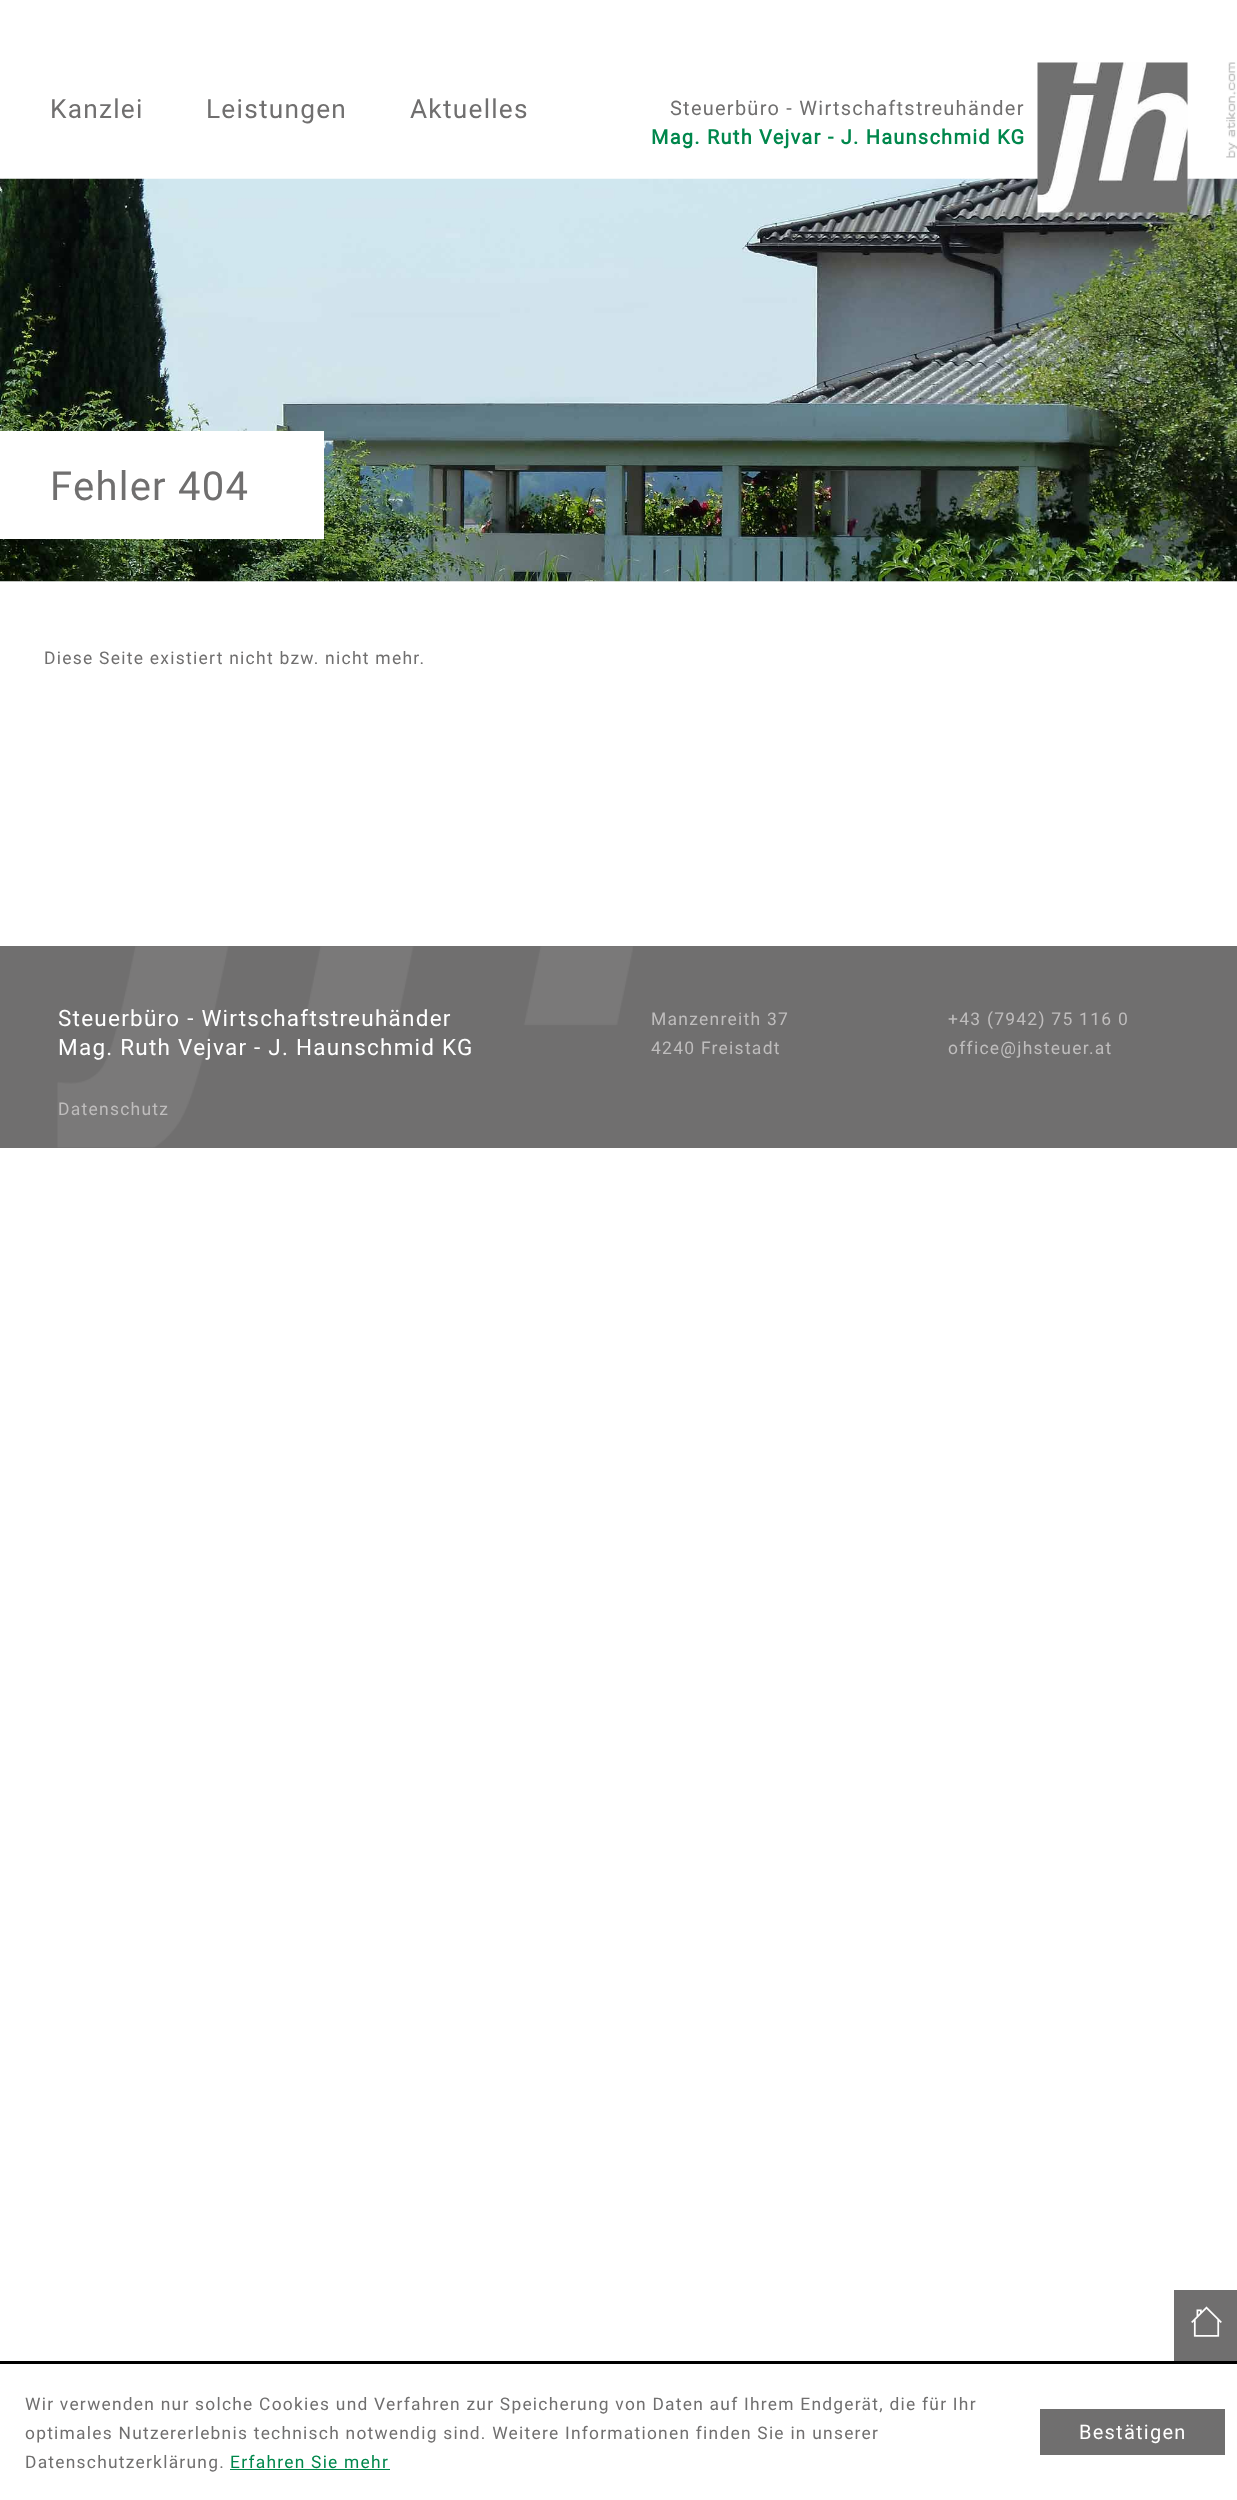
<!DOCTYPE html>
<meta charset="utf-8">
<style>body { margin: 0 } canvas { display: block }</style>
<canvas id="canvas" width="1237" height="2500"></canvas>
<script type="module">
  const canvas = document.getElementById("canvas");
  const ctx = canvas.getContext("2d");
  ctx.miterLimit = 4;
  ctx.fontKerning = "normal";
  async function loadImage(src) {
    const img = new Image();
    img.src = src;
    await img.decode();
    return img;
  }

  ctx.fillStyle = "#ffffff";
  ctx.fillRect(0, 0, 1237, 2500);
  ctx.letterSpacing = "1.25px";
  ctx.font = "26.25px Roboto";
  ctx.fillStyle = "#706f6f";
  ctx.fillText("Kanzlei", 50, 118);
  ctx.fillText("Leistungen", 206, 118);
  ctx.fillText("Aktuelles", 410, 118);
  ctx.font = "20px Roboto";
  ctx.fillText("Steuerbüro - Wirtschaftstreuhänder", 670, 115);
  ctx.font = "bold 20px Roboto";
  ctx.fillStyle = "#00874c";
  ctx.fillText("Mag. Ruth Vejvar - J. Haunschmid KG", 651, 144);
  ctx.drawImage(await loadImage("img3.png"), 0, 178, 1237, 404);
  ctx.drawImage(await loadImage("img1.png"), 1037, 62, 151, 151);
  ctx.drawImage(await loadImage("img2.png"), 1226, 62, 11, 96);
  ctx.fillStyle = "#ffffff";
  ctx.fillRect(0, 431, 324, 108);
  ctx.font = "40px Roboto";
  ctx.fillStyle = "#706f6f";
  ctx.fillText("Fehler 404", 50, 500);
  ctx.font = "17.5px Roboto";
  ctx.fillText("Diese Seite existiert nicht bzw. nicht mehr.", 44, 664);
  ctx.fillRect(1174, 2290, 63, 71);
  ctx.drawImage(await loadImage("img4.png"), 1191, 2306, 31, 31);
  ctx.fillRect(0, 946, 1237, 202);
  ctx.drawImage(await loadImage("img5.png"), 57, 946, 576, 202);
  ctx.font = "22.5px Roboto";
  ctx.fillStyle = "#ffffff";
  ctx.fillText("Steuerbüro - Wirtschaftstreuhänder", 58, 1026);
  ctx.fillText("Mag. Ruth Vejvar - J. Haunschmid KG", 58, 1055);
  ctx.font = "17.5px Roboto";
  ctx.fillStyle = "#bfbdbd";
  ctx.fillText("Manzenreith 37", 651, 1025);
  ctx.fillText("4240 Freistadt", 651, 1054);
  ctx.fillText("+43 (7942) 75 116 0", 948, 1025);
  ctx.fillText("office@jhsteuer.at", 948, 1054);
  ctx.fillText("Datenschutz", 58, 1115);
  ctx.fillStyle = "#000000";
  ctx.fillRect(0, 2361, 1237, 3);
  ctx.font = "17.4px Roboto";
  ctx.fillStyle = "#706f6f";
  ctx.fillText("Wir verwenden nur solche Cookies und Verfahren zur Speicherung von Daten auf Ihrem Endgerät, die für Ihr", 25, 2410);
  ctx.fillText("optimales Nutzererlebnis technisch notwendig sind. Weitere Informationen finden Sie in unserer", 25, 2439);
  ctx.fillText("Datenschutzerklärung.", 25, 2468);
  ctx.fillStyle = "#00874c";
  ctx.fillText("Erfahren Sie mehr", 230, 2468);
  ctx.fillRect(230, 2469, 160, 1);
  ctx.fillStyle = "#706f6f";
  ctx.fillRect(1040, 2409, 185, 46);
  ctx.font = "20px Roboto";
  ctx.fillStyle = "#ffffff";
  ctx.fillText("Bestätigen", 1079, 2439);
</script>
